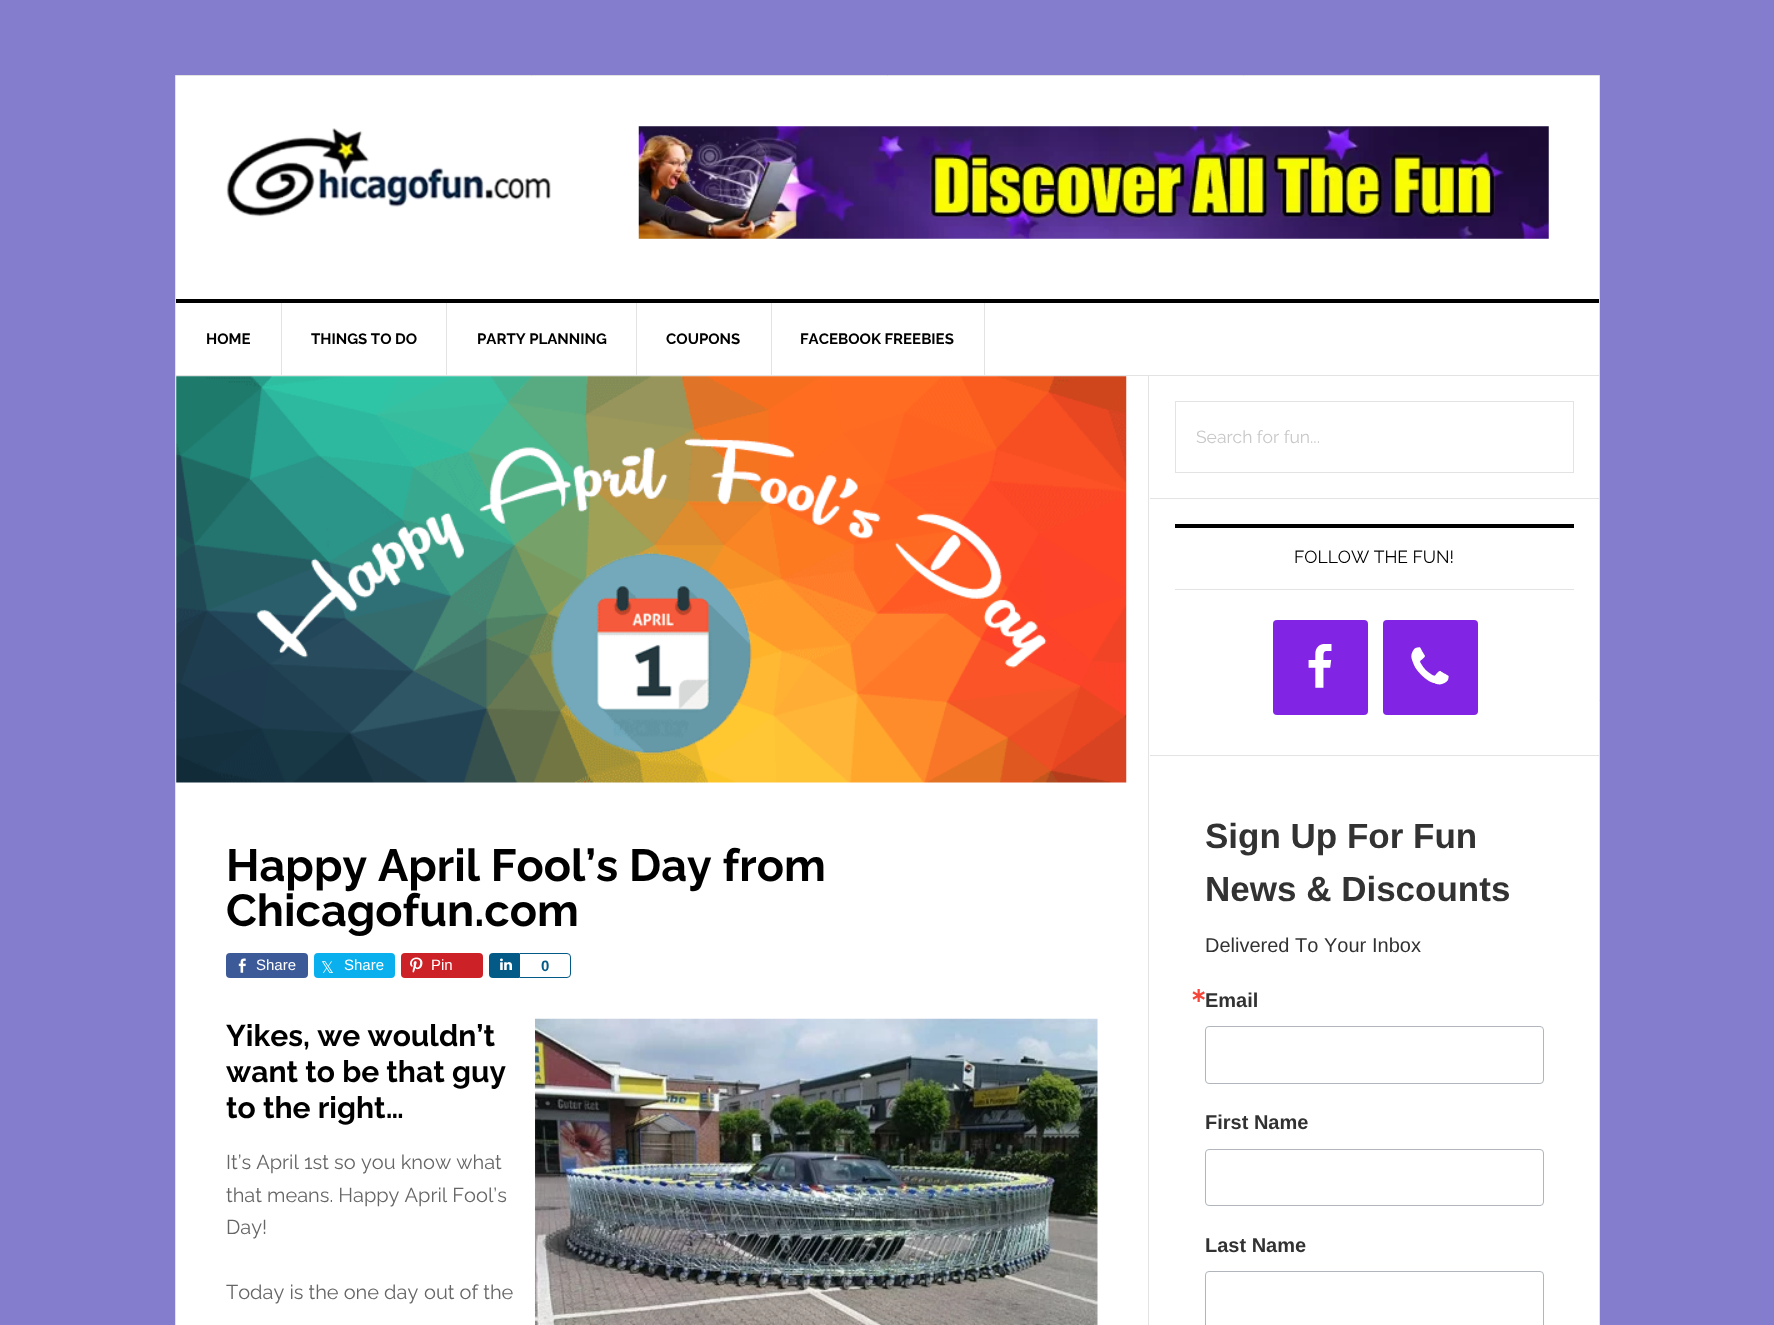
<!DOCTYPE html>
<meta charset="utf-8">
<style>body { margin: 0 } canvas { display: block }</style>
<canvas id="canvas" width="1774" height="1325"></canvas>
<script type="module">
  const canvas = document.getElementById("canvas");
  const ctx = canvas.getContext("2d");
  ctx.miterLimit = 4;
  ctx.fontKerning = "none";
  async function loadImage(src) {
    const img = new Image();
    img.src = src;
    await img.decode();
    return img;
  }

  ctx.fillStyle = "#847ccc";
  ctx.fillRect(0, 0, 1774, 1325);
  ctx.fillStyle = "#ffffff";
  ctx.beginPath();
  ctx.rect(175.5, 75.5, 1424, 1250);
  ctx.fill();
  ctx.strokeStyle = "#e3e3e3";
  ctx.stroke();
  ctx.fillStyle = "#000000";
  ctx.fillRect(176, 299, 1423, 4);
  ctx.drawImage(await loadImage("img1.png"), 226, 128, 325, 89);
  ctx.drawImage(await loadImage("img2.png"), 638, 126, 911, 113);
  ctx.fillStyle = "#e3e3e3";
  ctx.fillRect(176, 375, 1423, 1);
  ctx.fillRect(281, 303, 1, 72);
  ctx.font = "bold 15px Raleway";
  ctx.fillStyle = "#000000";
  ctx.fillText("HOME", 206, 344);
  ctx.fillStyle = "#e3e3e3";
  ctx.fillRect(446, 303, 1, 72);
  ctx.fillStyle = "#000000";
  ctx.fillText("THINGS TO DO", 311, 344);
  ctx.fillStyle = "#e3e3e3";
  ctx.fillRect(636, 303, 1, 72);
  ctx.fillStyle = "#000000";
  ctx.fillText("PARTY PLANNING", 477, 344);
  ctx.fillStyle = "#e3e3e3";
  ctx.fillRect(771, 303, 1, 72);
  ctx.fillStyle = "#000000";
  ctx.fillText("COUPONS", 666, 344);
  ctx.fillStyle = "#e3e3e3";
  ctx.fillRect(984, 303, 1, 72);
  ctx.fillStyle = "#000000";
  ctx.fillText("FACEBOOK FREEBIES", 800, 344);
  ctx.fillStyle = "#e3e3e3";
  ctx.fillRect(1148, 376, 1, 949);
  ctx.drawImage(await loadImage("img3.png"), 176, 376, 951, 407);
  ctx.font = "bold 45px Raleway";
  ctx.fillStyle = "#000000";
  ctx.fillText("Happy April Fool’s", 226, 881);
  ctx.fillText("Day from", 629, 881);
  ctx.fillText("Chicagofun.com", 226, 926);
  ctx.fillStyle = "#3d5a98";
  ctx.beginPath();
  ctx.roundRect(226, 953, 82, 25, 4);
  ctx.fill();
  ctx.drawImage(await loadImage("img4.png"), 238, 958, 8, 15);
  ctx.font = "15px Liberation Sans";
  ctx.fillStyle = "#ffffff";
  ctx.fillText("Share", 256, 970);
  ctx.fillStyle = "#09b0ed";
  ctx.beginPath();
  ctx.roundRect(314, 953, 81, 25, 4);
  ctx.fill();
  ctx.font = "16px DejaVu Sans";
  ctx.fillStyle = "#ffffff";
  ctx.fillText("𝕏", 321, 973);
  ctx.font = "15px Liberation Sans";
  ctx.fillText("Share", 344, 970);
  ctx.fillStyle = "#cb2127";
  ctx.beginPath();
  ctx.roundRect(401, 953, 82, 25, 4);
  ctx.fill();
  ctx.drawImage(await loadImage("img5.png"), 410, 957, 13, 16);
  ctx.fillStyle = "#ffffff";
  ctx.fillText("Pin", 431, 970);
  ctx.fillStyle = "#035a87";
  ctx.beginPath();
  ctx.roundRect(489, 953, 30, 25, [4, 0, 0, 4]);
  ctx.fill();
  ctx.drawImage(await loadImage("img6.png"), 500, 958, 12, 12);
  ctx.beginPath();
  ctx.roundRect(519.5, 953.5, 51, 24, [0, 3.5, 3.5, 0]);
  ctx.strokeStyle = "#035a87";
  ctx.stroke();
  ctx.font = "bold 15px Liberation Sans";
  ctx.fillText("0", 541, 971);
  ctx.font = "bold 30px Raleway";
  ctx.fillStyle = "#000000";
  ctx.fillText("Yikes, we wouldn’t", 226, 1046);
  ctx.drawImage(await loadImage("img7.png"), 535, 1018, 563, 307);
  ctx.fillText("want to be that guy", 226, 1082);
  ctx.fillText("to the right…", 226, 1118);
  ctx.font = "20px Raleway";
  ctx.fillStyle = "#666666";
  ctx.fillText("It’s April 1st so", 226, 1169);
  ctx.fillText("you know what", 361, 1169);
  ctx.fillText("that means. Happy April Fool’s", 226, 1202);
  ctx.fillText("Day!", 226, 1234);
  ctx.fillText("Today is the one day", 226, 1299);
  ctx.fillText("out of the", 424, 1299);
  ctx.fillStyle = "#e3e3e3";
  ctx.fillRect(1150, 498, 449, 1);
  ctx.strokeStyle = "#e3e3e3";
  ctx.strokeRect(1175.5, 401.5, 398, 71);
  ctx.font = "17.5px Raleway";
  ctx.fillStyle = "#c8c8c8";
  ctx.fillText("Search for fun...", 1196, 443);
  ctx.fillStyle = "#e3e3e3";
  ctx.fillRect(1150, 755, 449, 1);
  ctx.fillStyle = "#000000";
  ctx.fillRect(1175, 524, 399, 4);
  ctx.fillStyle = "#e3e3e3";
  ctx.fillRect(1175, 589, 399, 1);
  ctx.fillStyle = "#000000";
  ctx.fillText("FOLLOW THE FUN!", 1294, 563);
  ctx.fillStyle = "#8224e3";
  ctx.beginPath();
  ctx.roundRect(1273, 620, 95, 95, 4);
  ctx.fill();
  ctx.drawImage(await loadImage("img8.png"), 1308, 644, 24, 44);
  ctx.beginPath();
  ctx.roundRect(1383, 620, 95, 95, 4);
  ctx.fill();
  ctx.drawImage(await loadImage("img9.png"), 1411, 647, 38, 38);
  ctx.font = "bold 35px Liberation Sans";
  ctx.fillStyle = "#323232";
  ctx.fillText("Sign Up For Fun", 1205, 848);
  ctx.fillText("News & Discounts", 1205, 901);
  ctx.font = "20px Liberation Sans";
  ctx.fillText("Delivered To Your", 1205, 952);
  ctx.fillText("Inbox", 1372, 952);
  ctx.font = "bold 20px DejaVu Sans";
  ctx.fillStyle = "#f5463b";
  ctx.fillText("∗", 1190, 1002);
  ctx.font = "bold 20px Liberation Sans";
  ctx.fillStyle = "#323232";
  ctx.fillText("Email", 1205, 1007);
  ctx.beginPath();
  ctx.roundRect(1205.5, 1026.5, 338, 57, 3.5);
  ctx.strokeStyle = "#b0b6bb";
  ctx.stroke();
  ctx.fillText("First Name", 1205, 1129);
  ctx.beginPath();
  ctx.roundRect(1205.5, 1149.5, 338, 56, 3.5);
  ctx.stroke();
  ctx.fillText("Last Name", 1205, 1252);
  ctx.beginPath();
  ctx.roundRect(1205.5, 1271.5, 338, 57, 3.5);
  ctx.stroke();
</script>
